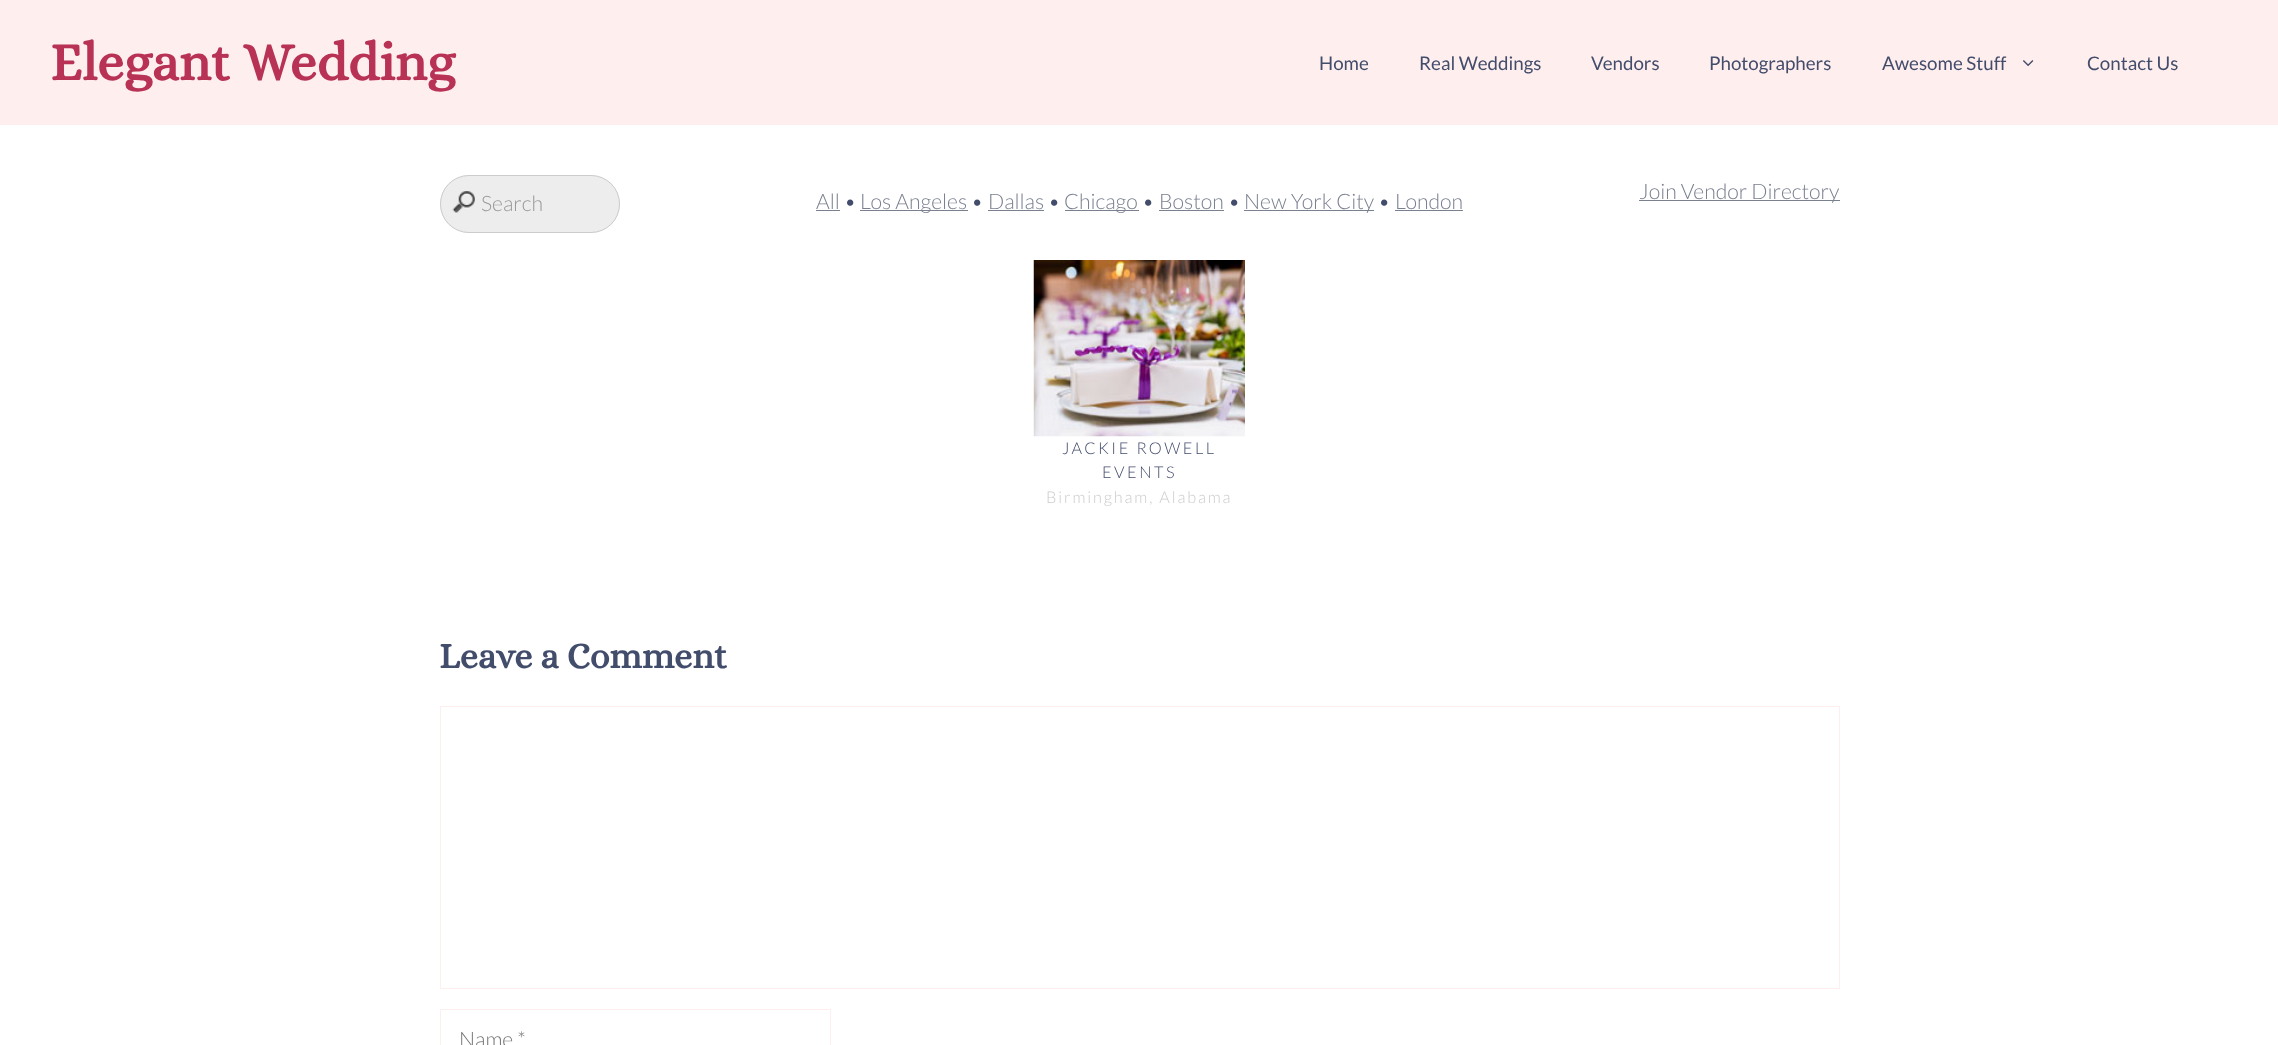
<!DOCTYPE html>
<meta charset="utf-8">
<style>body { margin: 0 } canvas { display: block }</style>
<canvas id="canvas" width="2278" height="1045"></canvas>
<script type="module">
  const canvas = document.getElementById("canvas");
  const ctx = canvas.getContext("2d");
  ctx.miterLimit = 4;
  ctx.fontKerning = "normal";
  async function loadImage(src) {
    const img = new Image();
    img.src = src;
    await img.decode();
    return img;
  }

  ctx.fillStyle = "#ffffff";
  ctx.fillRect(0, 0, 2278, 1045);
  ctx.fillStyle = "#ffeeee";
  ctx.fillRect(0, 0, 2278, 125);
  ctx.font = "bold 53.75px Alice";
  ctx.fillStyle = "#b83255";
  ctx.fillText("Elegant Wedding", 50, 80);
  ctx.font = "18.75px Lato";
  ctx.fillStyle = "#424c6b";
  ctx.fillText("Home", 1319, 70);
  ctx.fillText("Real Weddings", 1419, 70);
  ctx.fillText("Vendors", 1591, 70);
  ctx.fillText("Photographers", 1709, 70);
  ctx.fillText("Awesome Stuff", 1882, 70);
  ctx.drawImage(await loadImage("img1.png"), 2023, 60, 11, 7);
  ctx.fillText("Contact Us", 2087, 70);
  ctx.fillStyle = "#ededed";
  ctx.beginPath();
  ctx.roundRect(440, 175, 180, 58, 29);
  ctx.fill();
  ctx.drawImage(await loadImage("img2.png"), 452, 191, 23, 23);
  ctx.beginPath();
  ctx.roundRect(440.5, 175.5, 179, 57, 28.5);
  ctx.strokeStyle = "#cccccc";
  ctx.stroke();
  ctx.font = "300 21.25px Lato";
  ctx.fillStyle = "#999999";
  ctx.fillText("Search", 481, 211);
  ctx.fillStyle = "#7b808f";
  ctx.fillText("All", 816, 209);
  ctx.fillRect(816, 210, 24, 1);
  ctx.fillStyle = "#424c6b";
  ctx.fillText("•", 844, 209);
  ctx.fillStyle = "#7b808f";
  ctx.fillRect(860, 210, 108, 1);
  ctx.fillText("Los Angeles", 860, 209);
  ctx.fillStyle = "#424c6b";
  ctx.fillText("•", 971, 209);
  ctx.fillStyle = "#7b808f";
  ctx.fillText("Dallas", 988, 209);
  ctx.fillRect(988, 210, 56, 1);
  ctx.fillStyle = "#424c6b";
  ctx.fillText("•", 1048, 209);
  ctx.fillStyle = "#7b808f";
  ctx.fillRect(1065, 210, 74, 1);
  ctx.fillText("Chicago", 1064, 209);
  ctx.fillStyle = "#424c6b";
  ctx.fillText("•", 1142, 209);
  ctx.fillStyle = "#7b808f";
  ctx.fillText("Boston", 1159, 209);
  ctx.fillRect(1159, 210, 65, 1);
  ctx.fillStyle = "#424c6b";
  ctx.fillText("•", 1228, 209);
  ctx.fillStyle = "#7b808f";
  ctx.fillRect(1244, 210, 130, 1);
  ctx.fillText("New York City", 1244, 209);
  ctx.fillStyle = "#424c6b";
  ctx.fillText("•", 1378, 209);
  ctx.fillStyle = "#7b808f";
  ctx.fillText("London", 1395, 209);
  ctx.fillRect(1395, 210, 68, 1);
  ctx.fillRect(1639, 200, 201, 1);
  ctx.fillText("Join Vendor Directory", 1639, 199);
  ctx.drawImage(await loadImage("img3.png"), 1033, 260, 212, 177);
  ctx.letterSpacing = "2.5px";
  ctx.font = "300 16.25px Lato";
  ctx.fillStyle = "#424c6b";
  ctx.fillText("JACKIE ROWELL", 1062, 454);
  ctx.fillText("EVENTS", 1102, 478);
  ctx.letterSpacing = "1.9px";
  ctx.fillStyle = "#cccccc";
  ctx.fillText("Birmingham, Alabama", 1046, 503);
  ctx.letterSpacing = "0px";
  ctx.font = "bold 36.25px Alice";
  ctx.fillStyle = "#424c6b";
  ctx.fillText("Leave a Comment", 439, 668);
  ctx.strokeStyle = "#ffeeee";
  ctx.strokeRect(440.5, 706.5, 1399, 282);
  ctx.strokeRect(440.5, 1009.5, 390, 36);
  ctx.font = "300 21.25px Lato";
  ctx.fillStyle = "#757575";
  ctx.fillText("Name *", 459, 1047);
</script>
